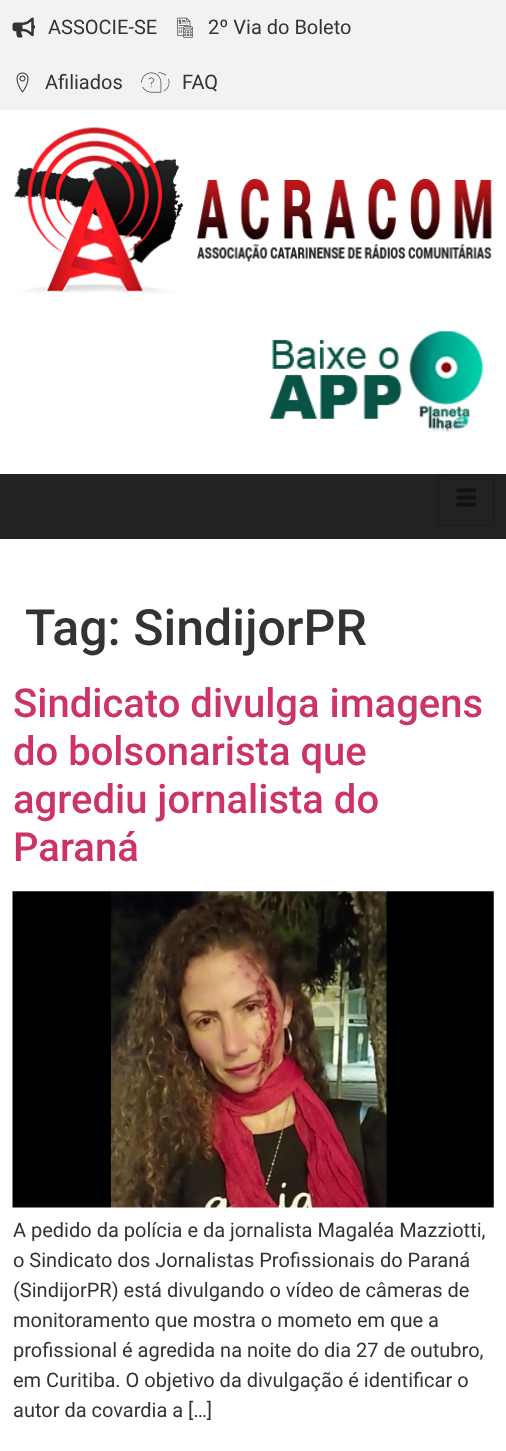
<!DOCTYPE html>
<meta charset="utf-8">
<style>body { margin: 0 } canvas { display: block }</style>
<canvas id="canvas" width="506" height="1451"></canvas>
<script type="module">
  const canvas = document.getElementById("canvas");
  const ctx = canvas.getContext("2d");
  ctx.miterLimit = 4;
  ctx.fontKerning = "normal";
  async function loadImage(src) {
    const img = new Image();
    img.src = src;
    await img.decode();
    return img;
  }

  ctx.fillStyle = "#ffffff";
  ctx.fillRect(0, 0, 506, 1451);
  ctx.fillStyle = "#f2f2f2";
  ctx.fillRect(0, 0, 506, 110);
  ctx.drawImage(await loadImage("img1.png"), 12, 17, 23, 21);
  ctx.font = "20px Roboto";
  ctx.fillStyle = "#333333";
  ctx.fillText("ASSOCIE-SE", 48, 34);
  ctx.drawImage(await loadImage("img2.png"), 177, 17, 16, 21);
  ctx.fillText("2º Via do Boleto", 208, 34);
  ctx.drawImage(await loadImage("img3.png"), 16, 72, 13, 21);
  ctx.fillText("Afiliados", 45, 89);
  ctx.drawImage(await loadImage("img4.png"), 141, 72, 29, 21);
  ctx.fillText("FAQ", 182, 89);
  ctx.drawImage(await loadImage("img5.png"), 14, 127, 478, 167);
  ctx.drawImage(await loadImage("img6.png"), 269, 331, 214, 101);
  ctx.fillStyle = "#222222";
  ctx.fillRect(0, 474, 506, 65);
  ctx.beginPath();
  ctx.roundRect(438.5, 474.5, 55, 51, 3.5);
  ctx.strokeStyle = "#1b1b1b";
  ctx.stroke();
  ctx.drawImage(await loadImage("img7.png"), 456, 488, 20, 19);
  ctx.font = "500 50px Roboto";
  ctx.fillStyle = "#333333";
  ctx.fillText("Tag: SindijorPR", 25, 645);
  ctx.font = "500 40px Roboto";
  ctx.fillStyle = "#cc3366";
  ctx.fillText("Sindicato divulga imagens", 13, 717);
  ctx.fillText("do bolsonarista que", 13, 765);
  ctx.fillText("agrediu jornalista do", 13, 813);
  ctx.fillText("Paraná", 13, 861);
  ctx.drawImage(await loadImage("img8.png"), 12, 891, 482, 317);
  ctx.font = "20px Roboto";
  ctx.fillStyle = "#333333";
  ctx.fillText("A pedido da polícia e da jornalista Magaléa Mazziotti,", 13, 1237);
  ctx.fillText("o Sindicato dos Jornalistas Profissionais do Paraná", 13, 1267);
  ctx.fillText("(SindijorPR) está divulgando o vídeo de câmeras de", 13, 1297);
  ctx.fillText("monitoramento que mostra o mometo em que a", 13, 1327);
  ctx.fillText("profissional é agredida na noite do dia 27 de outubro,", 13, 1357);
  ctx.fillText("em Curitiba. O objetivo da divulgação é identificar o", 13, 1387);
  ctx.fillText("autor da covardia a […]", 13, 1417);
</script>
